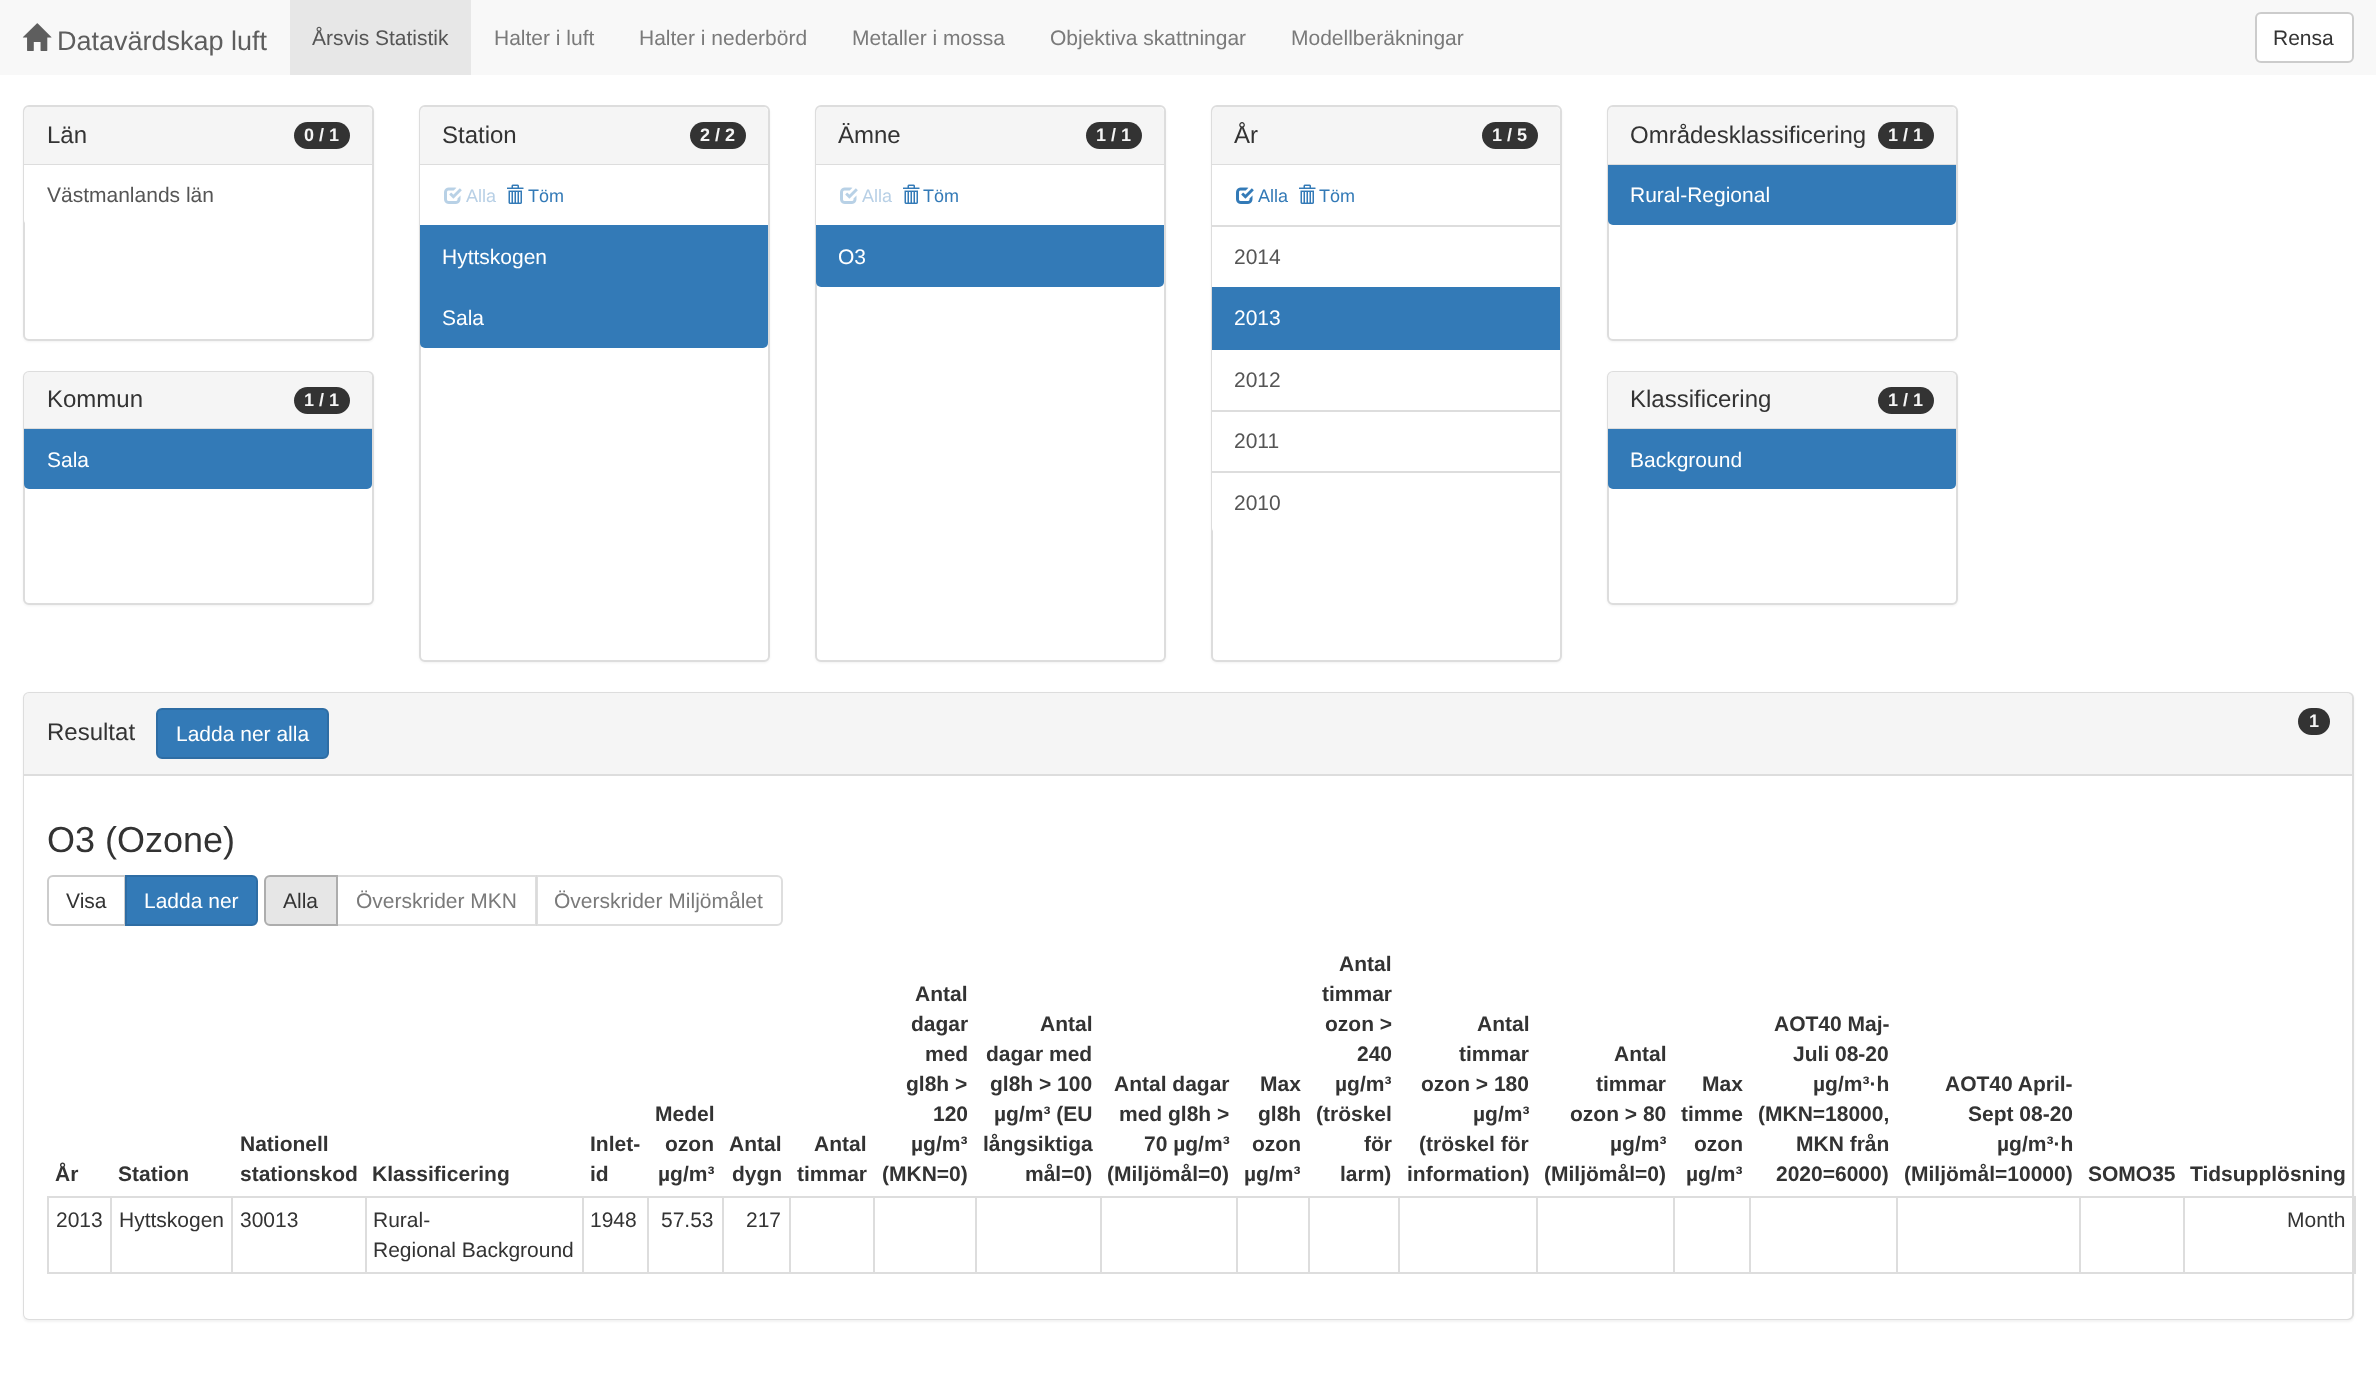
<!DOCTYPE html>
<meta charset="utf-8">
<style>body { margin: 0 } canvas { display: block }</style>
<canvas id="canvas" width="2376" height="1380"></canvas>
<script type="module">
  const canvas = document.getElementById("canvas");
  const ctx = canvas.getContext("2d");
  ctx.miterLimit = 4;
  ctx.fontKerning = "normal";
  async function loadImage(src) {
    const img = new Image();
    img.src = src;
    await img.decode();
    return img;
  }

  ctx.fillStyle = "#ffffff";
  ctx.fillRect(0, 0, 2376, 1380);
  ctx.fillStyle = "#f8f8f8";
  ctx.fillRect(0, 0, 2376, 75);
  ctx.drawImage(await loadImage("img1.png"), 22, 23, 30, 28);
  ctx.font = "27px Liberation Sans";
  ctx.fillStyle = "#5e5e5e";
  ctx.fillText("Datavärdskap luft", 57, 50);
  ctx.fillStyle = "#e7e7e7";
  ctx.fillRect(290, 0, 181, 75);
  ctx.font = "21px Liberation Sans";
  ctx.fillStyle = "#555555";
  ctx.fillText("Årsvis Statistik", 312, 45);
  ctx.fillStyle = "#7a7a7a";
  ctx.fillText("Halter i luft", 494, 45);
  ctx.fillText("Halter i nederbörd", 639, 45);
  ctx.fillText("Metaller i mossa", 852, 45);
  ctx.fillText("Objektiva skattningar", 1050, 45);
  ctx.fillText("Modellberäkningar", 1291, 45);
  ctx.fillStyle = "#ffffff";
  ctx.beginPath();
  ctx.roundRect(2256, 13, 97, 49, 5);
  ctx.fill();
  ctx.strokeStyle = "#cccccc";
  ctx.lineWidth = 2;
  ctx.stroke();
  ctx.fillStyle = "#333333";
  ctx.fillText("Rensa", 2273, 45);
  ctx.fillStyle = "rgba(0, 0, 0, 0.05)";
  ctx.filter = "blur(1px)";
  ctx.beginPath();
  ctx.roundRect(23, 107, 351, 235, 6);
  ctx.fill();
  ctx.filter = "none";
  ctx.fillStyle = "#ffffff";
  ctx.beginPath();
  ctx.roundRect(24, 106, 349, 234, 5);
  ctx.fill();
  ctx.strokeStyle = "#dddddd";
  ctx.stroke();
  ctx.fillStyle = "#f5f5f5";
  ctx.beginPath();
  ctx.roundRect(24, 107, 348, 58, [5, 5, 0, 0]);
  ctx.fill();
  ctx.fillStyle = "#dddddd";
  ctx.fillRect(24, 164, 348, 1);
  ctx.font = "24px Liberation Sans";
  ctx.fillStyle = "#333333";
  ctx.fillText("Län", 47, 143);
  ctx.beginPath();
  ctx.roundRect(294, 122, 56, 27, 13.5);
  ctx.fill();
  ctx.font = "bold 18px Liberation Sans";
  ctx.fillStyle = "#f5f5f5";
  ctx.fillText("0 / 1", 304, 141);
  ctx.fillStyle = "#ffffff";
  ctx.beginPath();
  ctx.roundRect(24, 165, 348, 60, [0, 0, 5, 5]);
  ctx.fill();
  ctx.font = "21px Liberation Sans";
  ctx.fillStyle = "#555555";
  ctx.fillText("Västmanlands län", 47, 202);
  ctx.fillStyle = "rgba(0, 0, 0, 0.05)";
  ctx.filter = "blur(1px)";
  ctx.beginPath();
  ctx.roundRect(23, 372, 351, 234, 6);
  ctx.fill();
  ctx.filter = "none";
  ctx.fillStyle = "#ffffff";
  ctx.beginPath();
  ctx.roundRect(24, 372, 349, 232, 5);
  ctx.fill();
  ctx.stroke();
  ctx.fillStyle = "#f5f5f5";
  ctx.beginPath();
  ctx.roundRect(24, 372, 348, 57, [5, 5, 0, 0]);
  ctx.fill();
  ctx.fillStyle = "#dddddd";
  ctx.fillRect(24, 428, 348, 1);
  ctx.font = "24px Liberation Sans";
  ctx.fillStyle = "#333333";
  ctx.fillText("Kommun", 47, 407);
  ctx.beginPath();
  ctx.roundRect(294, 387, 56, 27, 13.5);
  ctx.fill();
  ctx.font = "bold 18px Liberation Sans";
  ctx.fillStyle = "#f5f5f5";
  ctx.fillText("1 / 1", 304, 406);
  ctx.fillStyle = "#337ab7";
  ctx.beginPath();
  ctx.roundRect(24, 429, 348, 60, [0, 0, 5, 5]);
  ctx.fill();
  ctx.font = "21px Liberation Sans";
  ctx.fillStyle = "#ffffff";
  ctx.fillText("Sala", 47, 467);
  ctx.fillStyle = "rgba(0, 0, 0, 0.05)";
  ctx.filter = "blur(1px)";
  ctx.beginPath();
  ctx.roundRect(419, 107, 351, 556, 6);
  ctx.fill();
  ctx.filter = "none";
  ctx.fillStyle = "#ffffff";
  ctx.beginPath();
  ctx.roundRect(420, 106, 349, 555, 5);
  ctx.fill();
  ctx.stroke();
  ctx.fillStyle = "#f5f5f5";
  ctx.beginPath();
  ctx.roundRect(420, 107, 348, 58, [5, 5, 0, 0]);
  ctx.fill();
  ctx.fillStyle = "#dddddd";
  ctx.fillRect(420, 164, 348, 1);
  ctx.font = "24px Liberation Sans";
  ctx.fillStyle = "#333333";
  ctx.fillText("Station", 442, 143);
  ctx.beginPath();
  ctx.roundRect(690, 122, 56, 27, 13.5);
  ctx.fill();
  ctx.font = "bold 18px Liberation Sans";
  ctx.fillStyle = "#f5f5f5";
  ctx.fillText("2 / 2", 700, 141);
  ctx.fillStyle = "#ffffff";
  ctx.fillRect(420, 165, 1, 60);
  ctx.drawImage(await loadImage("img2.png"), 444, 187, 18, 17);
  ctx.font = "18px Liberation Sans";
  ctx.fillStyle = "#b8d0e6";
  ctx.fillText("Alla", 466, 202);
  ctx.drawImage(await loadImage("img3.png"), 507, 184, 17, 20);
  ctx.fillStyle = "#337ab7";
  ctx.fillText("Töm", 528, 202);
  ctx.fillRect(420, 225, 348, 62);
  ctx.font = "21px Liberation Sans";
  ctx.fillStyle = "#ffffff";
  ctx.fillText("Hyttskogen", 442, 264);
  ctx.fillStyle = "#337ab7";
  ctx.beginPath();
  ctx.roundRect(420, 287, 348, 61, [0, 0, 5, 5]);
  ctx.fill();
  ctx.fillStyle = "#ffffff";
  ctx.fillText("Sala", 442, 325);
  ctx.fillStyle = "rgba(0, 0, 0, 0.05)";
  ctx.filter = "blur(1px)";
  ctx.beginPath();
  ctx.roundRect(815, 107, 351, 556, 6);
  ctx.fill();
  ctx.filter = "none";
  ctx.fillStyle = "#ffffff";
  ctx.beginPath();
  ctx.roundRect(816, 106, 349, 555, 5);
  ctx.fill();
  ctx.stroke();
  ctx.fillStyle = "#f5f5f5";
  ctx.beginPath();
  ctx.roundRect(816, 107, 348, 58, [5, 5, 0, 0]);
  ctx.fill();
  ctx.fillStyle = "#dddddd";
  ctx.fillRect(816, 164, 348, 1);
  ctx.font = "24px Liberation Sans";
  ctx.fillStyle = "#333333";
  ctx.fillText("Ämne", 838, 143);
  ctx.beginPath();
  ctx.roundRect(1086, 122, 56, 27, 13.5);
  ctx.fill();
  ctx.font = "bold 18px Liberation Sans";
  ctx.fillStyle = "#f5f5f5";
  ctx.fillText("1 / 1", 1096, 141);
  ctx.fillStyle = "#ffffff";
  ctx.fillRect(816, 165, 1, 60);
  ctx.drawImage(await loadImage("img2.png"), 840, 187, 18, 17);
  ctx.font = "18px Liberation Sans";
  ctx.fillStyle = "#b8d0e6";
  ctx.fillText("Alla", 862, 202);
  ctx.drawImage(await loadImage("img3.png"), 903, 184, 17, 20);
  ctx.fillStyle = "#337ab7";
  ctx.fillText("Töm", 923, 202);
  ctx.beginPath();
  ctx.roundRect(816, 225, 348, 62, [0, 0, 5, 5]);
  ctx.fill();
  ctx.font = "21px Liberation Sans";
  ctx.fillStyle = "#ffffff";
  ctx.fillText("O3", 838, 264);
  ctx.fillStyle = "rgba(0, 0, 0, 0.05)";
  ctx.filter = "blur(1px)";
  ctx.beginPath();
  ctx.roundRect(1211, 107, 351, 556, 6);
  ctx.fill();
  ctx.filter = "none";
  ctx.fillStyle = "#ffffff";
  ctx.beginPath();
  ctx.roundRect(1212, 106, 349, 555, 5);
  ctx.fill();
  ctx.stroke();
  ctx.fillStyle = "#f5f5f5";
  ctx.beginPath();
  ctx.roundRect(1212, 107, 348, 58, [5, 5, 0, 0]);
  ctx.fill();
  ctx.fillStyle = "#dddddd";
  ctx.fillRect(1212, 164, 348, 1);
  ctx.font = "24px Liberation Sans";
  ctx.fillStyle = "#333333";
  ctx.fillText("År", 1234, 143);
  ctx.beginPath();
  ctx.roundRect(1482, 122, 56, 27, 13.5);
  ctx.fill();
  ctx.font = "bold 18px Liberation Sans";
  ctx.fillStyle = "#f5f5f5";
  ctx.fillText("1 / 5", 1492, 141);
  ctx.fillStyle = "#ffffff";
  ctx.fillRect(1212, 165, 1, 60);
  ctx.drawImage(await loadImage("img4.png"), 1236, 187, 18, 17);
  ctx.font = "18px Liberation Sans";
  ctx.fillStyle = "#337ab7";
  ctx.fillText("Alla", 1258, 202);
  ctx.drawImage(await loadImage("img3.png"), 1299, 184, 17, 20);
  ctx.fillText("Töm", 1319, 202);
  ctx.fillStyle = "#ffffff";
  ctx.fillRect(1212, 227, 1, 60);
  ctx.fillStyle = "#dddddd";
  ctx.fillRect(1212, 225, 348, 2);
  ctx.font = "21px Liberation Sans";
  ctx.fillStyle = "#555555";
  ctx.fillText("2014", 1234, 264);
  ctx.fillStyle = "#337ab7";
  ctx.fillRect(1212, 287, 348, 63);
  ctx.fillStyle = "#ffffff";
  ctx.fillText("2013", 1234, 325);
  ctx.fillRect(1212, 350, 1, 60);
  ctx.fillStyle = "#555555";
  ctx.fillText("2012", 1234, 387);
  ctx.fillStyle = "#ffffff";
  ctx.fillRect(1212, 412, 1, 59);
  ctx.fillStyle = "#dddddd";
  ctx.fillRect(1212, 410, 348, 2);
  ctx.fillStyle = "#555555";
  ctx.fillText("2011", 1234, 448);
  ctx.fillStyle = "#ffffff";
  ctx.beginPath();
  ctx.roundRect(1212, 471, 348, 62, [0, 0, 5, 5]);
  ctx.fill();
  ctx.fillStyle = "#dddddd";
  ctx.fillRect(1212, 471, 348, 2);
  ctx.fillStyle = "#555555";
  ctx.fillText("2010", 1234, 510);
  ctx.fillStyle = "rgba(0, 0, 0, 0.05)";
  ctx.filter = "blur(1px)";
  ctx.beginPath();
  ctx.roundRect(1607, 107, 351, 235, 6);
  ctx.fill();
  ctx.filter = "none";
  ctx.fillStyle = "#ffffff";
  ctx.beginPath();
  ctx.roundRect(1608, 106, 349, 234, 5);
  ctx.fill();
  ctx.stroke();
  ctx.fillStyle = "#f5f5f5";
  ctx.beginPath();
  ctx.roundRect(1608, 107, 348, 58, [5, 5, 0, 0]);
  ctx.fill();
  ctx.fillStyle = "#dddddd";
  ctx.fillRect(1608, 164, 348, 1);
  ctx.font = "24px Liberation Sans";
  ctx.fillStyle = "#333333";
  ctx.fillText("Områdesklassificering", 1630, 143);
  ctx.beginPath();
  ctx.roundRect(1878, 122, 56, 27, 13.5);
  ctx.fill();
  ctx.font = "bold 18px Liberation Sans";
  ctx.fillStyle = "#f5f5f5";
  ctx.fillText("1 / 1", 1888, 141);
  ctx.fillStyle = "#337ab7";
  ctx.beginPath();
  ctx.roundRect(1608, 165, 348, 60, [0, 0, 5, 5]);
  ctx.fill();
  ctx.font = "21px Liberation Sans";
  ctx.fillStyle = "#ffffff";
  ctx.fillText("Rural-Regional", 1630, 202);
  ctx.fillStyle = "rgba(0, 0, 0, 0.05)";
  ctx.filter = "blur(1px)";
  ctx.beginPath();
  ctx.roundRect(1607, 372, 351, 234, 6);
  ctx.fill();
  ctx.filter = "none";
  ctx.fillStyle = "#ffffff";
  ctx.beginPath();
  ctx.roundRect(1608, 372, 349, 232, 5);
  ctx.fill();
  ctx.stroke();
  ctx.fillStyle = "#f5f5f5";
  ctx.beginPath();
  ctx.roundRect(1608, 372, 348, 57, [5, 5, 0, 0]);
  ctx.fill();
  ctx.fillStyle = "#dddddd";
  ctx.fillRect(1608, 428, 348, 1);
  ctx.font = "24px Liberation Sans";
  ctx.fillStyle = "#333333";
  ctx.fillText("Klassificering", 1630, 407);
  ctx.beginPath();
  ctx.roundRect(1878, 387, 56, 27, 13.5);
  ctx.fill();
  ctx.font = "bold 18px Liberation Sans";
  ctx.fillStyle = "#f5f5f5";
  ctx.fillText("1 / 1", 1888, 406);
  ctx.fillStyle = "#337ab7";
  ctx.beginPath();
  ctx.roundRect(1608, 429, 348, 60, [0, 0, 5, 5]);
  ctx.fill();
  ctx.font = "21px Liberation Sans";
  ctx.fillStyle = "#ffffff";
  ctx.fillText("Background", 1630, 467);
  ctx.fillStyle = "rgba(0, 0, 0, 0.05)";
  ctx.filter = "blur(1px)";
  ctx.beginPath();
  ctx.roundRect(23, 693, 2331, 629, 6);
  ctx.fill();
  ctx.filter = "none";
  ctx.beginPath();
  ctx.roundRect(24, 693, 2329, 626, 5);
  ctx.stroke();
  ctx.fillStyle = "#f5f5f5";
  ctx.beginPath();
  ctx.roundRect(24, 693, 2328, 83, [5, 5, 0, 0]);
  ctx.fill();
  ctx.fillStyle = "#dddddd";
  ctx.fillRect(24, 774, 2328, 2);
  ctx.fillStyle = "#333333";
  ctx.beginPath();
  ctx.roundRect(2298, 708, 32, 27, 13.5);
  ctx.fill();
  ctx.font = "bold 18px Liberation Sans";
  ctx.fillStyle = "#f5f5f5";
  ctx.fillText("1", 2309, 727);
  ctx.font = "24px Liberation Sans";
  ctx.fillStyle = "#333333";
  ctx.fillText("Resultat", 47, 740);
  ctx.fillStyle = "#337ab7";
  ctx.beginPath();
  ctx.roundRect(157, 709, 171, 49, 5);
  ctx.fill();
  ctx.strokeStyle = "#2e6da4";
  ctx.stroke();
  ctx.font = "21px Liberation Sans";
  ctx.fillStyle = "#ffffff";
  ctx.fillText("Ladda ner alla", 176, 741);
  ctx.beginPath();
  ctx.roundRect(24, 776, 2328, 543, [0, 0, 5, 5]);
  ctx.fill();
  ctx.font = "36px Liberation Sans";
  ctx.fillStyle = "#333333";
  ctx.fillText("O3 (Ozone)", 47, 852);
  ctx.beginPath();
  ctx.roundRect(48, 876, 77, 49, [5, 0, 0, 5]);
  ctx.strokeStyle = "#cccccc";
  ctx.stroke();
  ctx.font = "21px Liberation Sans";
  ctx.fillText("Visa", 66, 908);
  ctx.fillStyle = "#337ab7";
  ctx.beginPath();
  ctx.roundRect(126, 876, 131, 49, [0, 5, 5, 0]);
  ctx.fill();
  ctx.strokeStyle = "#2e6da4";
  ctx.stroke();
  ctx.fillStyle = "#ffffff";
  ctx.fillText("Ladda ner", 144, 908);
  ctx.strokeStyle = "#dedede";
  ctx.strokeRect(337, 876, 199, 49);
  ctx.fillStyle = "#e6e6e6";
  ctx.beginPath();
  ctx.roundRect(265, 876, 72, 49, [5, 0, 0, 5]);
  ctx.fill();
  ctx.strokeStyle = "#adadad";
  ctx.stroke();
  ctx.fillStyle = "#333333";
  ctx.fillText("Alla", 283, 908);
  ctx.fillStyle = "#7a7a7a";
  ctx.fillText("Överskrider MKN", 356, 908);
  ctx.fillStyle = "rgba(255, 255, 255, 0.65)";
  ctx.beginPath();
  ctx.roundRect(536, 875, 247, 51, [0, 6, 6, 0]);
  ctx.fill();
  ctx.beginPath();
  ctx.roundRect(537, 876, 245, 49, [0, 5, 5, 0]);
  ctx.strokeStyle = "rgba(204, 204, 204, 0.65)";
  ctx.stroke();
  ctx.fillStyle = "#7a7a7a";
  ctx.fillText("Överskrider Miljömålet", 554, 908);
  ctx.font = "bold 21px Liberation Sans";
  ctx.fillStyle = "#333333";
  ctx.fillText("År", 55, 1181);
  ctx.fillText("Station", 118, 1181);
  ctx.fillText("Nationell", 240, 1151);
  ctx.fillText("stationskod", 240, 1181);
  ctx.fillText("Klassificering", 372, 1181);
  ctx.fillText("Inlet-", 590, 1151);
  ctx.fillText("id", 590, 1181);
  ctx.fillText("Medel", 655, 1121);
  ctx.fillText("ozon", 665, 1151);
  ctx.fillText("µg/m³", 658, 1181);
  ctx.fillText("Antal", 729, 1151);
  ctx.fillText("dygn", 732, 1181);
  ctx.fillText("Antal", 814, 1151);
  ctx.fillText("timmar", 797, 1181);
  ctx.fillText("Antal", 915, 1001);
  ctx.fillText("dagar", 911, 1031);
  ctx.fillText("med", 925, 1061);
  ctx.fillText("gl8h >", 906, 1091);
  ctx.fillText("120", 933, 1121);
  ctx.fillText("µg/m³", 911, 1151);
  ctx.fillText("(MKN=0)", 882, 1181);
  ctx.fillText("Antal", 1040, 1031);
  ctx.fillText("dagar med", 986, 1061);
  ctx.fillText("gl8h > 100", 990, 1091);
  ctx.fillText("µg/m³ (EU", 994, 1121);
  ctx.fillText("långsiktiga", 983, 1151);
  ctx.fillText("mål=0)", 1025, 1181);
  ctx.fillText("Antal dagar", 1114, 1091);
  ctx.fillText("med gl8h >", 1119, 1121);
  ctx.fillText("70 µg/m³", 1144, 1151);
  ctx.fillText("(Miljömål=0)", 1107, 1181);
  ctx.fillText("Max", 1260, 1091);
  ctx.fillText("gl8h", 1258, 1121);
  ctx.fillText("ozon", 1252, 1151);
  ctx.fillText("µg/m³", 1244, 1181);
  ctx.fillText("Antal", 1339, 971);
  ctx.fillText("timmar", 1322, 1001);
  ctx.fillText("ozon >", 1325, 1031);
  ctx.fillText("240", 1357, 1061);
  ctx.fillText("µg/m³", 1335, 1091);
  ctx.fillText("(tröskel", 1316, 1121);
  ctx.fillText("för", 1364, 1151);
  ctx.fillText("larm)", 1340, 1181);
  ctx.fillText("Antal", 1477, 1031);
  ctx.fillText("timmar", 1459, 1061);
  ctx.fillText("ozon > 180", 1421, 1091);
  ctx.fillText("µg/m³", 1473, 1121);
  ctx.fillText("(tröskel för", 1419, 1151);
  ctx.fillText("information)", 1407, 1181);
  ctx.fillText("Antal", 1614, 1061);
  ctx.fillText("timmar", 1596, 1091);
  ctx.fillText("ozon > 80", 1570, 1121);
  ctx.fillText("µg/m³", 1610, 1151);
  ctx.fillText("(Miljömål=0)", 1544, 1181);
  ctx.fillText("Max", 1702, 1091);
  ctx.fillText("timme", 1681, 1121);
  ctx.fillText("ozon", 1694, 1151);
  ctx.fillText("µg/m³", 1686, 1181);
  ctx.fillText("AOT40 Maj-", 1774, 1031);
  ctx.fillText("Juli 08-20", 1793, 1061);
  ctx.fillText("µg/m³·h", 1813, 1091);
  ctx.fillText("(MKN=18000,", 1758, 1121);
  ctx.fillText("MKN från", 1796, 1151);
  ctx.fillText("2020=6000)", 1776, 1181);
  ctx.fillText("AOT40 April-", 1945, 1091);
  ctx.fillText("Sept 08-20", 1968, 1121);
  ctx.fillText("µg/m³·h", 1997, 1151);
  ctx.fillText("(Miljömål=10000)", 1904, 1181);
  ctx.fillText("SOMO35", 2088, 1181);
  ctx.fillText("Tidsupplösning", 2190, 1181);
  ctx.fillStyle = "#dddddd";
  ctx.fillRect(2183, 1196, 172, 2);
  ctx.fillRect(2354, 1196, 2, 78);
  ctx.fillRect(2183, 1272, 172, 2);
  ctx.fillRect(2183, 1196, 2, 78);
  ctx.fillRect(2079, 1196, 105, 2);
  ctx.fillRect(2079, 1272, 105, 2);
  ctx.fillRect(2079, 1196, 2, 78);
  ctx.fillRect(1896, 1196, 185, 2);
  ctx.fillRect(1896, 1272, 185, 2);
  ctx.fillRect(1896, 1196, 2, 78);
  ctx.fillRect(1749, 1196, 149, 2);
  ctx.fillRect(1749, 1272, 149, 2);
  ctx.fillRect(1749, 1196, 2, 78);
  ctx.fillRect(1673, 1196, 78, 2);
  ctx.fillRect(1673, 1272, 78, 2);
  ctx.fillRect(1673, 1196, 2, 78);
  ctx.fillRect(1536, 1196, 138, 2);
  ctx.fillRect(1536, 1272, 138, 2);
  ctx.fillRect(1536, 1196, 2, 78);
  ctx.fillRect(1398, 1196, 140, 2);
  ctx.fillRect(1398, 1272, 140, 2);
  ctx.fillRect(1398, 1196, 2, 78);
  ctx.fillRect(1308, 1196, 92, 2);
  ctx.fillRect(1308, 1272, 92, 2);
  ctx.fillRect(1308, 1196, 2, 78);
  ctx.fillRect(1236, 1196, 74, 2);
  ctx.fillRect(1236, 1272, 74, 2);
  ctx.fillRect(1236, 1196, 2, 78);
  ctx.fillRect(1100, 1196, 138, 2);
  ctx.fillRect(1100, 1272, 138, 2);
  ctx.fillRect(1100, 1196, 2, 78);
  ctx.fillRect(975, 1196, 126, 2);
  ctx.fillRect(975, 1272, 126, 2);
  ctx.fillRect(975, 1196, 2, 78);
  ctx.fillRect(873, 1196, 104, 2);
  ctx.fillRect(873, 1272, 104, 2);
  ctx.fillRect(873, 1196, 2, 78);
  ctx.fillRect(789, 1196, 86, 2);
  ctx.fillRect(789, 1272, 86, 2);
  ctx.fillRect(789, 1196, 2, 78);
  ctx.fillRect(722, 1196, 69, 2);
  ctx.fillRect(722, 1272, 69, 2);
  ctx.fillRect(722, 1196, 2, 78);
  ctx.fillRect(647, 1196, 76, 2);
  ctx.fillRect(647, 1272, 76, 2);
  ctx.fillRect(647, 1196, 2, 78);
  ctx.fillRect(582, 1196, 66, 2);
  ctx.fillRect(582, 1272, 66, 2);
  ctx.fillRect(582, 1196, 2, 78);
  ctx.fillRect(365, 1196, 219, 2);
  ctx.fillRect(365, 1272, 219, 2);
  ctx.fillRect(365, 1196, 2, 78);
  ctx.fillRect(231, 1196, 135, 2);
  ctx.fillRect(231, 1272, 135, 2);
  ctx.fillRect(231, 1196, 2, 78);
  ctx.fillRect(110, 1196, 123, 2);
  ctx.fillRect(110, 1272, 123, 2);
  ctx.fillRect(110, 1196, 2, 78);
  ctx.fillRect(47, 1196, 64, 2);
  ctx.fillRect(47, 1272, 64, 2);
  ctx.fillRect(47, 1196, 2, 78);
  ctx.font = "21px Liberation Sans";
  ctx.fillStyle = "#333333";
  ctx.fillText("2013", 56, 1227);
  ctx.fillText("Hyttskogen", 119, 1227);
  ctx.fillText("30013", 240, 1227);
  ctx.fillText("Rural-", 373, 1227);
  ctx.fillText("Regional Background", 373, 1257);
  ctx.fillText("1948", 590, 1227);
  ctx.fillText("57.53", 661, 1227);
  ctx.fillText("217", 746, 1227);
  ctx.fillText("Month", 2287, 1227);
</script>
